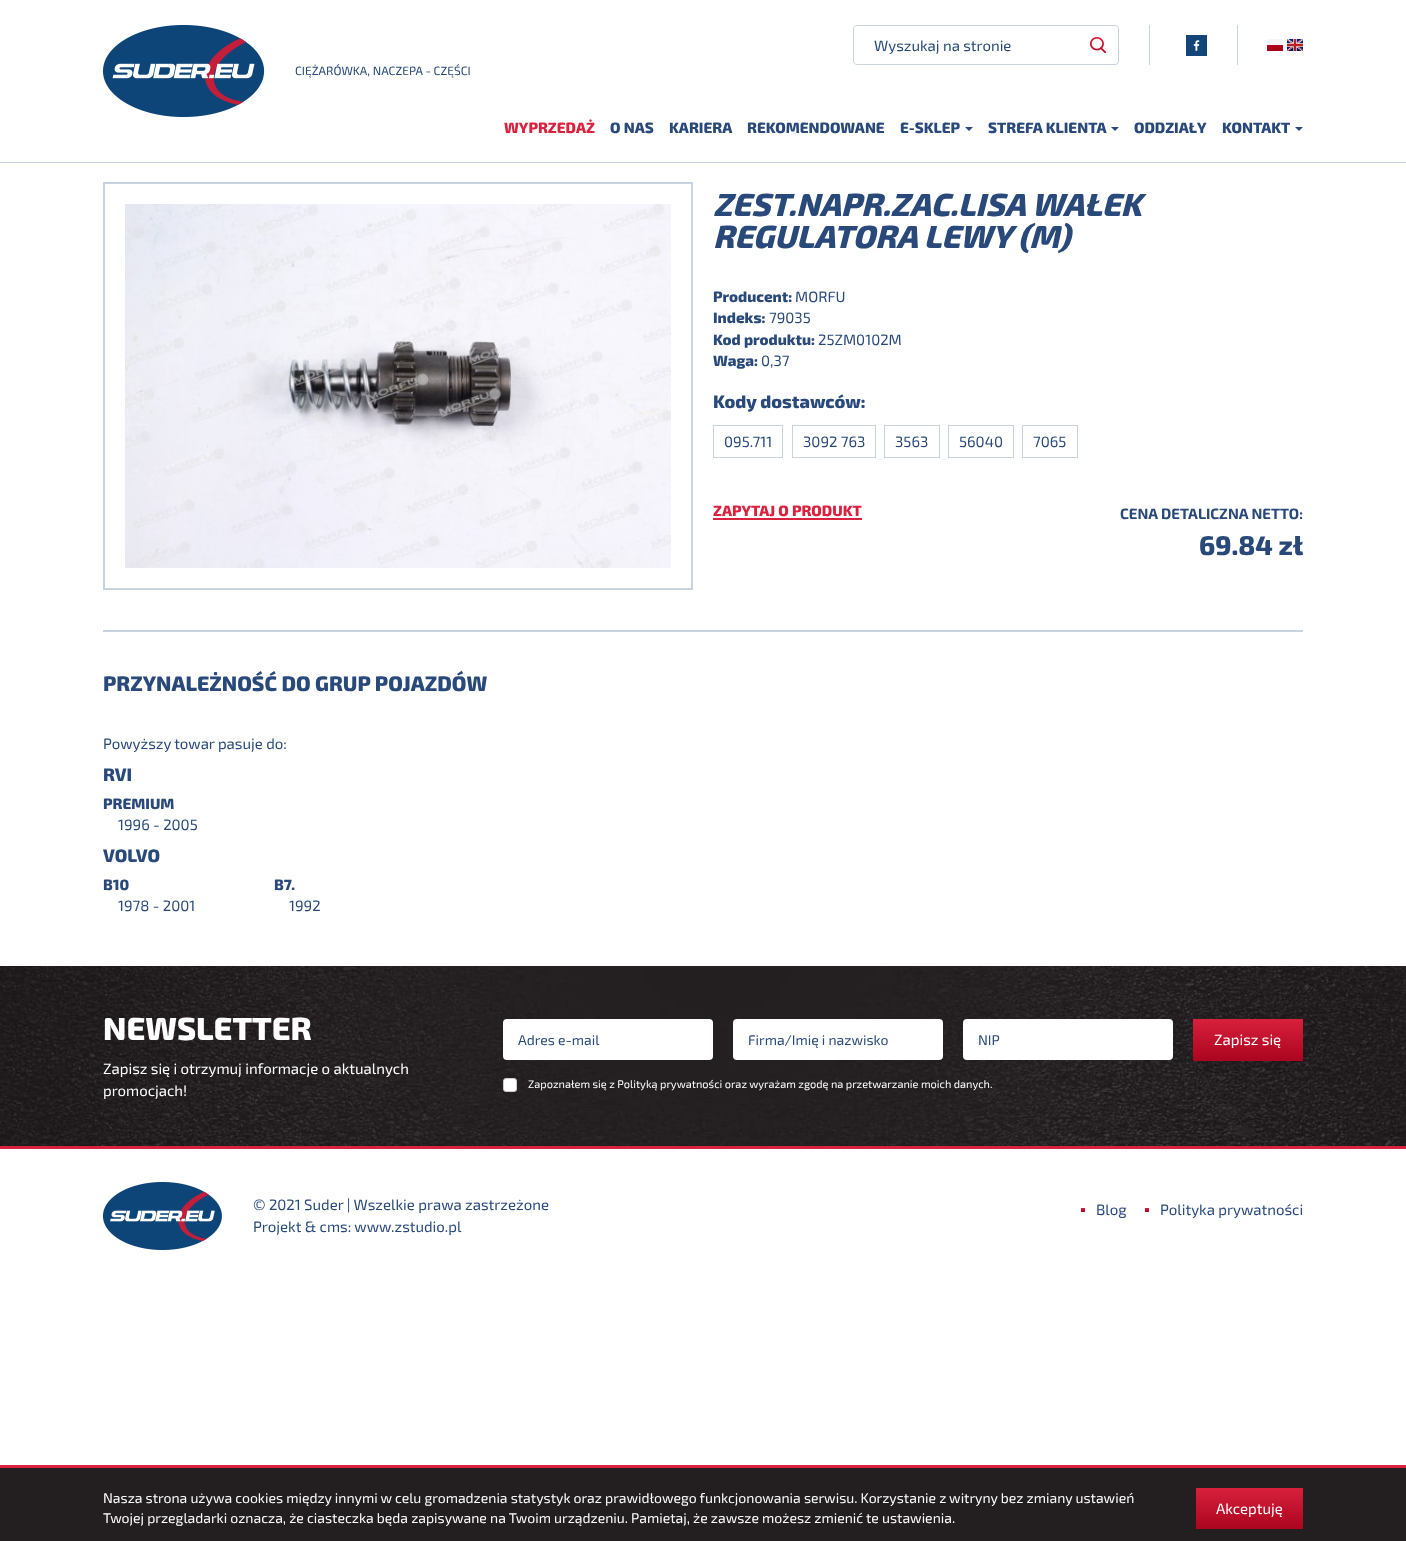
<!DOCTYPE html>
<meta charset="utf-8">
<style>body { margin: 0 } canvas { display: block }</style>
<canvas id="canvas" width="1406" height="1541"></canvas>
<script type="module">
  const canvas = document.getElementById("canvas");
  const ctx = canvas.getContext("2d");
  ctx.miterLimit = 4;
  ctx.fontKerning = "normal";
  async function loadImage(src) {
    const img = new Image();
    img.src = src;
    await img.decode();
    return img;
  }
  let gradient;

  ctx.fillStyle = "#ffffff";
  ctx.fillRect(0, 0, 1406, 1541);
  ctx.fillStyle = "#c7d3df";
  ctx.fillRect(0, 162, 1406, 1);
  ctx.beginPath();
  ctx.roundRect(853.5, 25.5, 265, 39, 3.5);
  ctx.strokeStyle = "#c7d3df";
  ctx.stroke();
  ctx.fillStyle = "#ffffff";
  ctx.beginPath();
  ctx.roundRect(854, 26, 224, 38, 4);
  ctx.fill();
  ctx.font = "15px 'Exo 2'";
  ctx.fillStyle = "#29497b";
  ctx.fillText("Wyszukaj na stronie", 874, 51);
  ctx.fillStyle = "#ffffff";
  ctx.beginPath();
  ctx.roundRect(1078, 26, 40, 38, 4);
  ctx.fill();
  ctx.drawImage(await loadImage("img1.png"), 1090, 37, 16, 16);
  ctx.fillStyle = "#c7d3df";
  ctx.fillRect(1149, 25, 1, 40);
  ctx.drawImage(await loadImage("img2.png"), 1186, 35, 21, 21);
  ctx.fillRect(1237, 25, 1, 40);
  ctx.drawImage(await loadImage("img3.png"), 1267, 39, 16, 12);
  ctx.drawImage(await loadImage("img4.png"), 1287, 39, 16, 12);
  ctx.drawImage(await loadImage("img5.png"), 103, 25, 162, 92);
  ctx.font = "12px 'Exo 2'";
  ctx.fillStyle = "#29497b";
  ctx.fillText("CIĘŻARÓWKA, NACZEPA - CZĘŚCI", 295, 75);
  ctx.font = "800 15px 'Exo 2'";
  ctx.fillStyle = "#da213d";
  ctx.fillText("WYPRZEDAŻ", 504, 133);
  ctx.fillStyle = "#29497b";
  ctx.fillText("O NAS", 610, 133);
  ctx.fillText("KARIERA", 669, 133);
  ctx.fillText("REKOMENDOWANE", 747, 133);
  ctx.fillText("E-SKLEP", 900, 133);
  ctx.beginPath();
  ctx.moveTo(965, 127);
  ctx.lineTo(973, 127);
  ctx.lineTo(969, 131);
  ctx.closePath();
  ctx.fill();
  ctx.fillText("STREFA KLIENTA", 988, 133);
  ctx.beginPath();
  ctx.moveTo(1111, 127);
  ctx.lineTo(1119, 127);
  ctx.lineTo(1115, 131);
  ctx.closePath();
  ctx.fill();
  ctx.fillText("ODDZIAŁY", 1134, 133);
  ctx.fillText("KONTAKT", 1222, 133);
  ctx.beginPath();
  ctx.moveTo(1295, 127);
  ctx.lineTo(1303, 127);
  ctx.lineTo(1299, 131);
  ctx.closePath();
  ctx.fill();
  ctx.lineWidth = 2;
  ctx.strokeRect(104, 183, 588, 406);
  ctx.drawImage(await loadImage("img6.png"), 125, 204, 546, 364);
  ctx.font = "italic 800 32px 'Exo 2'";
  ctx.fillText("ZEST.NAPR.ZAC.LISA WAŁEK", 713, 216);
  ctx.fillText("REGULATORA LEWY (M)", 713, 248);
  ctx.font = "800 15px 'Exo 2'";
  ctx.fillText("Producent:", 713, 302);
  ctx.font = "15px 'Exo 2'";
  ctx.fillText("MORFU", 795, 302);
  ctx.font = "800 15px 'Exo 2'";
  ctx.fillText("Indeks:", 713, 323);
  ctx.font = "15px 'Exo 2'";
  ctx.fillText("79035", 769, 323);
  ctx.font = "800 15px 'Exo 2'";
  ctx.fillText("Kod produktu:", 713, 345);
  ctx.font = "15px 'Exo 2'";
  ctx.fillText("25ZM0102M", 818, 345);
  ctx.font = "800 15px 'Exo 2'";
  ctx.fillText("Waga:", 713, 366);
  ctx.font = "15px 'Exo 2'";
  ctx.fillText("0,37", 761, 366);
  ctx.font = "800 18px 'Exo 2'";
  ctx.fillText("Kody dostawców:", 713, 408);
  ctx.lineWidth = 1;
  ctx.strokeRect(713.5, 425.5, 69, 32);
  ctx.font = "15px 'Exo 2'";
  ctx.fillText("095.711", 724, 447);
  ctx.strokeRect(792.5, 425.5, 83, 32);
  ctx.fillText("3092 763", 803, 447);
  ctx.strokeRect(884.5, 425.5, 55, 32);
  ctx.fillText("3563", 895, 447);
  ctx.strokeRect(948.5, 425.5, 65, 32);
  ctx.fillText("56040", 959, 447);
  ctx.strokeRect(1022.5, 425.5, 55, 32);
  ctx.fillText("7065", 1033, 447);
  ctx.fillStyle = "#da213d";
  ctx.fillRect(713, 518, 149, 2);
  ctx.font = "800 15px 'Exo 2'";
  ctx.fillText("ZAPYTAJ O PRODUKT", 713, 516);
  ctx.font = "bold 15px 'Exo 2'";
  ctx.fillStyle = "#29497b";
  ctx.fillText("CENA DETALICZNA NETTO:", 1120, 519);
  ctx.font = "800 27px 'Exo 2'";
  ctx.fillText("69.84 zł", 1199, 555);
  ctx.fillStyle = "#c7d3df";
  ctx.fillRect(103, 630, 1200, 2);
  ctx.font = "800 21px 'Exo 2'";
  ctx.fillStyle = "#29497b";
  ctx.fillText("PRZYNALEŻNOŚĆ DO GRUP POJAZDÓW", 103, 691);
  ctx.font = "15px 'Exo 2'";
  ctx.fillText("Powyższy towar pasuje do:", 103, 749);
  ctx.font = "800 18px 'Exo 2'";
  ctx.fillText("RVI", 103, 781);
  ctx.font = "800 15px 'Exo 2'";
  ctx.fillText("PREMIUM", 103, 809);
  ctx.font = "15px 'Exo 2'";
  ctx.fillText("1996 - 2005", 118, 830);
  ctx.font = "800 18px 'Exo 2'";
  ctx.fillText("VOLVO", 103, 862);
  ctx.font = "800 15px 'Exo 2'";
  ctx.fillText("B10", 103, 890);
  ctx.font = "15px 'Exo 2'";
  ctx.fillText("1978 - 2001", 118, 911);
  ctx.font = "800 15px 'Exo 2'";
  ctx.fillText("B7.", 274, 890);
  ctx.font = "15px 'Exo 2'";
  ctx.fillText("1992", 289, 911);
  ctx.drawImage(await loadImage("img7.png"), 0, 966, 1406, 180);
  ctx.fillStyle = "#da213d";
  ctx.fillRect(0, 1146, 1406, 3);
  ctx.font = "800 32px 'Exo 2'";
  ctx.fillStyle = "#ffffff";
  ctx.fillText("NEWSLETTER", 103, 1040);
  ctx.font = "15px 'Exo 2'";
  ctx.fillText("Zapisz się i otrzymuj informacje o aktualnych", 103, 1074);
  ctx.fillText("promocjach!", 103, 1096);
  ctx.beginPath();
  ctx.roundRect(503, 1019, 210, 41, 4);
  ctx.fill();
  ctx.font = "14px 'Exo 2'";
  ctx.fillStyle = "#29497b";
  ctx.fillText("Adres e-mail", 518, 1045);
  ctx.fillStyle = "#ffffff";
  ctx.beginPath();
  ctx.roundRect(733, 1019, 210, 41, 4);
  ctx.fill();
  ctx.fillStyle = "#29497b";
  ctx.fillText("Firma/Imię i nazwisko", 748, 1045);
  ctx.fillStyle = "#ffffff";
  ctx.beginPath();
  ctx.roundRect(963, 1019, 210, 41, 4);
  ctx.fill();
  ctx.fillStyle = "#29497b";
  ctx.fillText("NIP", 978, 1045);
  gradient = ctx.createLinearGradient(1193, 1061, 1193, 1019);
  gradient.addColorStop(0, "#ab051f");
  gradient.addColorStop(1, "#d8203c");
  ctx.fillStyle = gradient;
  ctx.fillRect(1193, 1019, 110, 42);
  ctx.font = "15px 'Exo 2'";
  ctx.fillStyle = "#ffffff";
  ctx.fillText("Zapisz się", 1214, 1045);
  ctx.beginPath();
  ctx.roundRect(503.5, 1078.5, 13, 13, 2.5);
  ctx.fill();
  ctx.strokeStyle = "#cccccc";
  ctx.stroke();
  ctx.font = "11px 'Exo 2'";
  ctx.fillText("Zapoznałem się z Polityką prywatności oraz wyrażam zgodę na przetwarzanie moich danych.", 528, 1088);
  ctx.drawImage(await loadImage("img8.png"), 103, 1182, 119, 68);
  ctx.font = "15px 'Exo 2'";
  ctx.fillStyle = "#29497b";
  ctx.fillText("© 2021 Suder | Wszelkie prawa zastrzeżone", 253, 1210);
  ctx.fillText("Projekt & cms: www.zstudio.pl", 253, 1232);
  gradient = ctx.createLinearGradient(1081, 1212, 1081, 1208);
  gradient.addColorStop(0, "#ab051f");
  gradient.addColorStop(1, "#d8203c");
  ctx.fillStyle = gradient;
  ctx.fillRect(1081, 1208, 4, 4);
  ctx.fillStyle = "#29497b";
  ctx.fillText("Blog", 1096, 1215);
  gradient = ctx.createLinearGradient(1145, 1212, 1145, 1208);
  gradient.addColorStop(0, "#ab051f");
  gradient.addColorStop(1, "#d8203c");
  ctx.fillStyle = gradient;
  ctx.fillRect(1145, 1208, 4, 4);
  ctx.fillStyle = "#29497b";
  ctx.fillText("Polityka prywatności", 1160, 1215);
  ctx.fillStyle = "#231f20";
  ctx.fillRect(0, 1468, 1406, 73);
  ctx.fillStyle = "#da213d";
  ctx.fillRect(0, 1465, 1406, 3);
  ctx.font = "14px 'Exo 2'";
  ctx.fillStyle = "#ffffff";
  ctx.fillText("Nasza strona używa cookies między innymi w celu gromadzenia statystyk oraz prawidłowego funkcjonowania serwisu. Korzystanie z witryny bez zmiany ustawień", 103, 1503);
  gradient = ctx.createLinearGradient(1196, 1529, 1196, 1488);
  gradient.addColorStop(0, "#ab051f");
  gradient.addColorStop(1, "#d8203c");
  ctx.fillStyle = gradient;
  ctx.fillRect(1196, 1488, 107, 41);
  ctx.font = "15px 'Exo 2'";
  ctx.fillStyle = "#ffffff";
  ctx.fillText("Akceptuję", 1216, 1514);
  ctx.font = "14px 'Exo 2'";
  ctx.fillText("Twojej przegladarki oznacza, że ciasteczka będa zapisywane na Twoim urządzeniu. Pamietaj, że zawsze możesz zmienić te ustawienia.", 103, 1523);
</script>
